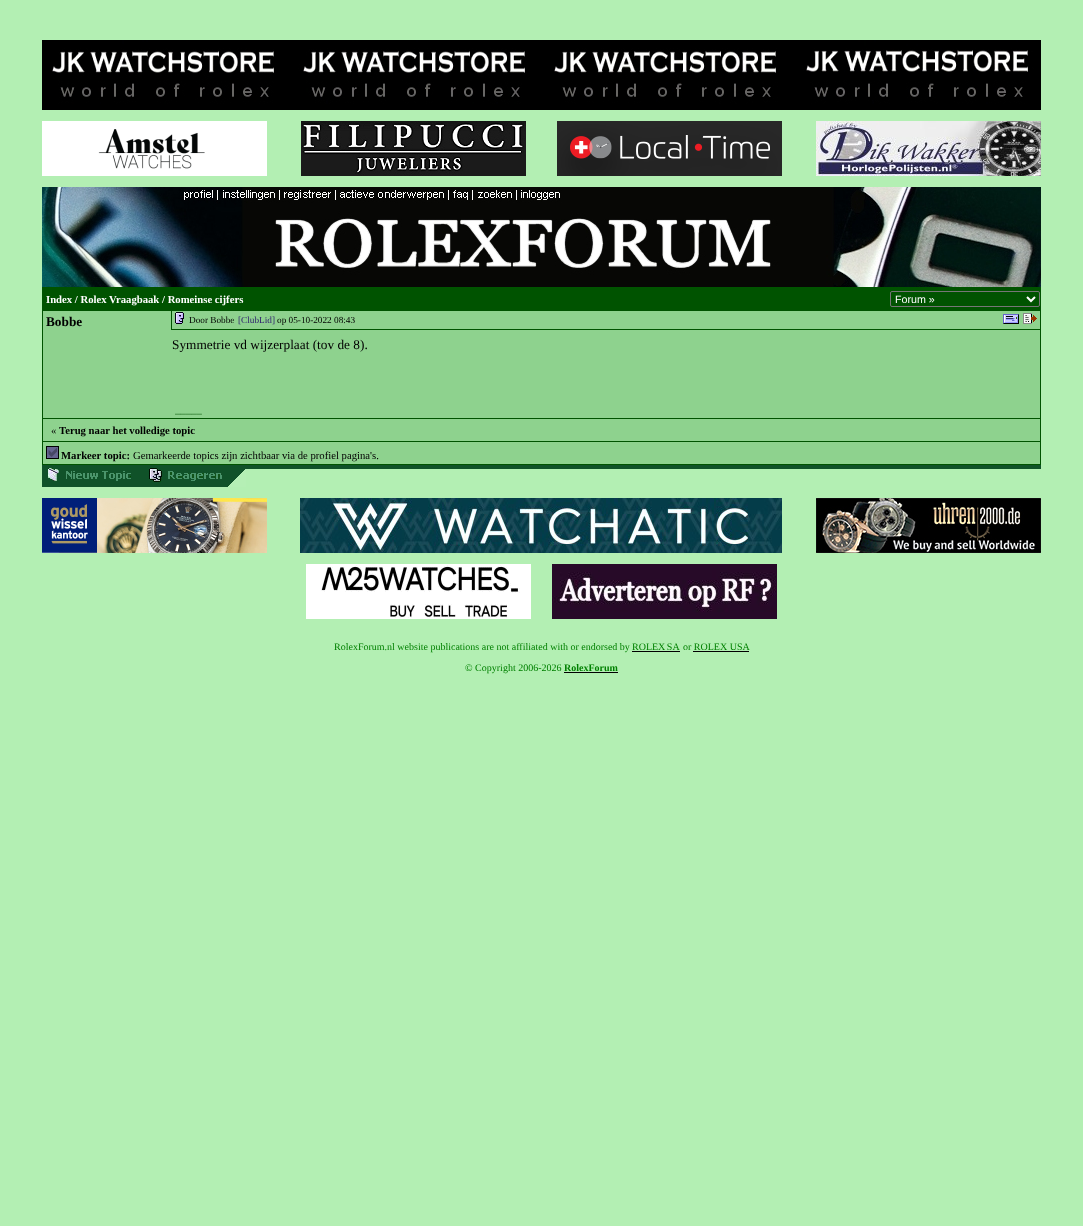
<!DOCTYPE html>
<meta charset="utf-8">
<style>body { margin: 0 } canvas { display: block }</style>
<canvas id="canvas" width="1083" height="1226"></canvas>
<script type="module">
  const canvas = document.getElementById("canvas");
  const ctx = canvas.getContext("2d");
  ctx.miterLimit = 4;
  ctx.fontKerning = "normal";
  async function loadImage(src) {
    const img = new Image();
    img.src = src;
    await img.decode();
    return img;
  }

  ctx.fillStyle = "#b3efb3";
  ctx.fillRect(0, 0, 1083, 1226);
  ctx.drawImage(await loadImage("img1.png"), 42, 40, 999, 70);
  ctx.drawImage(await loadImage("img2.png"), 42, 121, 225, 55);
  ctx.drawImage(await loadImage("img3.png"), 301, 121, 225, 55);
  ctx.drawImage(await loadImage("img4.png"), 557, 121, 225, 55);
  ctx.drawImage(await loadImage("img5.png"), 816, 121, 225, 55);
  ctx.drawImage(await loadImage("img6.png"), 42, 187, 999, 100);
  ctx.fillStyle = "#005300";
  ctx.fillRect(42, 287, 999, 178);
  ctx.font = "bold 10.7px Liberation Serif";
  ctx.fillStyle = "#ffffff";
  ctx.fillText("Index / Rolex Vraagbaak / Romeinse cijfers", 46, 303);
  ctx.beginPath();
  ctx.roundRect(890.5, 291.5, 149, 15, 1.5);
  ctx.strokeStyle = "#767676";
  ctx.stroke();
  ctx.beginPath();
  ctx.moveTo(1027, 297);
  ctx.lineTo(1031, 301);
  ctx.lineTo(1035, 297);
  ctx.strokeStyle = "#ffffff";
  ctx.lineWidth = 2;
  ctx.stroke();
  ctx.font = "10.7px Liberation Sans";
  ctx.fillText("Forum »", 895, 303);
  ctx.fillStyle = "#8ed28e";
  ctx.fillRect(43, 311, 997, 107);
  ctx.font = "bold 13.3px Liberation Serif";
  ctx.fillStyle = "#000000";
  ctx.fillText("Bobbe", 46, 326);
  ctx.fillStyle = "#005300";
  ctx.fillRect(171, 311, 1, 19);
  ctx.drawImage(await loadImage("img7.png"), 175, 312, 9, 12);
  ctx.font = "9.25px Liberation Serif";
  ctx.fillStyle = "#000000";
  ctx.fillText("Door Bobbe", 189, 323);
  ctx.fillStyle = "#2f206f";
  ctx.fillText("[ClubLid]", 238, 323);
  ctx.fillStyle = "#000000";
  ctx.fillText("op 05-10-2022 08:43", 277, 323);
  ctx.drawImage(await loadImage("img8.png"), 1003, 314, 16, 10);
  ctx.drawImage(await loadImage("img9.png"), 1023, 313, 14, 11);
  ctx.fillStyle = "#005300";
  ctx.fillRect(172, 329, 868, 1);
  ctx.font = "13.3px Liberation Serif";
  ctx.fillStyle = "#000000";
  ctx.fillText("Symmetrie vd wijzerplaat (tov de 8).", 172, 349);
  ctx.font = "10.7px Liberation Serif";
  ctx.fillStyle = "#005300";
  ctx.fillText("_____", 175, 413);
  ctx.fillStyle = "#8ed28e";
  ctx.fillRect(43, 419, 997, 22);
  ctx.fillStyle = "#000000";
  ctx.fillText("«", 51, 434);
  ctx.font = "bold 10.7px Liberation Serif";
  ctx.fillText("Terug naar het volledige topic", 59, 434);
  ctx.fillStyle = "#8ed28e";
  ctx.fillRect(43, 442, 997, 22);
  ctx.drawImage(await loadImage("img10.png"), 46, 446, 13, 13);
  ctx.fillStyle = "#000000";
  ctx.fillText("Markeer topic:", 61, 459);
  ctx.font = "10.7px Liberation Serif";
  ctx.fillText("Gemarkeerde topics zijn zichtbaar via de profiel pagina's.", 133, 459);
  ctx.drawImage(await loadImage("img11.png"), 42, 465, 101, 22);
  ctx.drawImage(await loadImage("img12.png"), 143, 465, 103, 22);
  ctx.fillStyle = "#105229";
  ctx.fillRect(246, 465, 795, 4);
  ctx.drawImage(await loadImage("img13.png"), 42, 498, 225, 55);
  ctx.drawImage(await loadImage("img14.png"), 300, 498, 482, 55);
  ctx.drawImage(await loadImage("img15.png"), 816, 498, 225, 55);
  ctx.drawImage(await loadImage("img16.png"), 306, 564, 225, 55);
  ctx.drawImage(await loadImage("img17.png"), 552, 564, 225, 55);
  ctx.font = "10px Liberation Serif";
  ctx.fillStyle = "#008000";
  ctx.fillText("RolexForum.nl website publications are not affiliated with or endorsed by", 334, 650);
  ctx.wordSpacing = "-1px";
  ctx.fillText("ROLEX SA", 632, 650);
  ctx.fillStyle = "#000000";
  ctx.fillRect(632, 651, 48, 1);
  ctx.wordSpacing = "0px";
  ctx.fillStyle = "#008000";
  ctx.fillText("or ROLEX USA", 683, 650);
  ctx.fillStyle = "#000000";
  ctx.fillRect(693, 651, 56, 1);
  ctx.fillStyle = "#008000";
  ctx.fillText("© Copyright 2006-2026", 465, 671);
  ctx.fillStyle = "#000000";
  ctx.fillRect(564, 672, 54, 1);
  ctx.font = "bold 10px Liberation Serif";
  ctx.fillStyle = "#008000";
  ctx.fillText("RolexForum", 564, 671);
</script>
